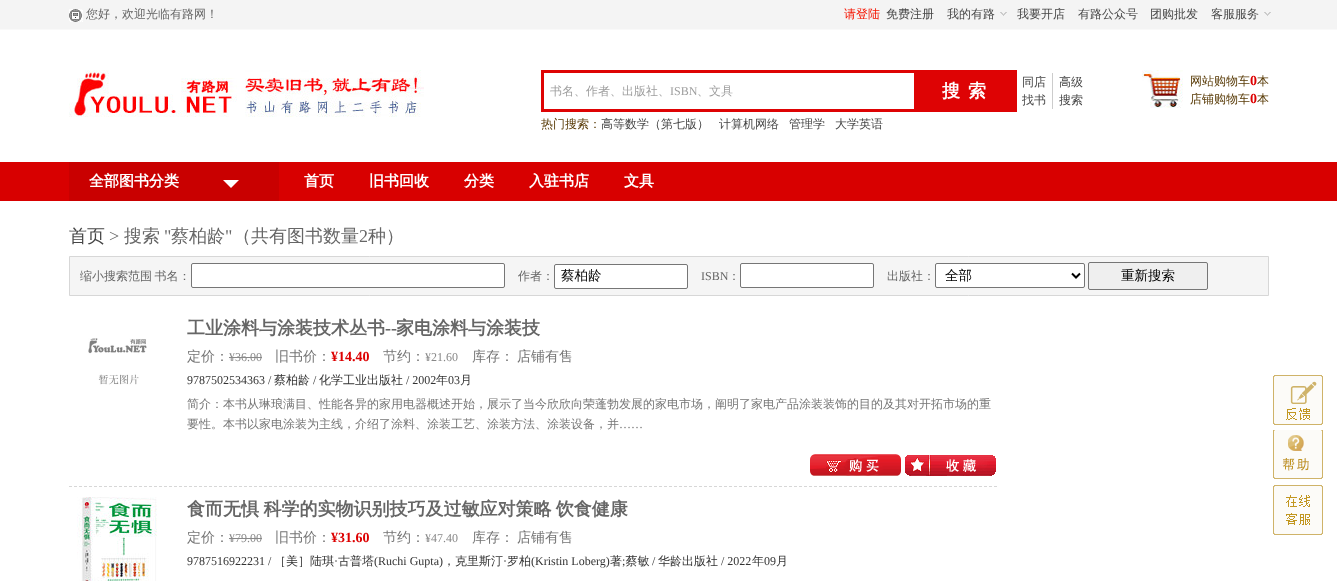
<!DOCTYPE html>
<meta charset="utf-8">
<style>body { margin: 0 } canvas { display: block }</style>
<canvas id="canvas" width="1337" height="581"></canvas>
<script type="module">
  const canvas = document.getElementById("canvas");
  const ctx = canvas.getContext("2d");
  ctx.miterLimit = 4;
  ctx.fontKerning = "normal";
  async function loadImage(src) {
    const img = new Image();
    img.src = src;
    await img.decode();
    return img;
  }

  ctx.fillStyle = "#ffffff";
  ctx.fillRect(0, 0, 1337, 581);
  ctx.fillStyle = "#f4f4f4";
  ctx.fillRect(0, 0, 1337, 29);
  ctx.fillStyle = "#f9f9f9";
  ctx.fillRect(0, 29, 1337, 1);
  ctx.drawImage(await loadImage("img1.png"), 69, 9, 14, 13);
  ctx.font = "500 12px WenQuanYi Zen Hei";
  ctx.fillStyle = "#666666";
  ctx.fillText("您好，欢迎光临有路网！", 86, 18);
  ctx.fillStyle = "#f51400";
  ctx.fillText("请登陆", 844, 18);
  ctx.fillStyle = "#464646";
  ctx.fillText("免费注册", 886, 18);
  ctx.fillText("我的有路", 947, 18);
  ctx.drawImage(await loadImage("img2.png"), 1000, 12, 7, 4);
  ctx.fillText("我要开店", 1017, 18);
  ctx.fillText("有路公众号", 1078, 18);
  ctx.fillText("团购批发", 1150, 18);
  ctx.fillText("客服服务", 1211, 18);
  ctx.drawImage(await loadImage("img2.png"), 1264, 12, 7, 4);
  ctx.drawImage(await loadImage("img3.png"), 69, 70, 355, 47);
  ctx.strokeStyle = "#de0304";
  ctx.lineWidth = 3;
  ctx.strokeRect(542.5, 71.5, 473, 39);
  ctx.fillStyle = "#9e9e9e";
  ctx.fillText("书名、作者、出版社、", 550, 95);
  ctx.font = "12px Liberation Serif";
  ctx.fillText("ISBN", 670, 95);
  ctx.font = "500 12px WenQuanYi Zen Hei";
  ctx.fillText("、文具", 697, 95);
  ctx.fillStyle = "#de0304";
  ctx.fillRect(914, 73, 100, 36);
  ctx.letterSpacing = "8px";
  ctx.font = "bold 18px WenQuanYi Zen Hei";
  ctx.fillStyle = "#ffffff";
  ctx.fillText("搜索", 942, 97);
  ctx.letterSpacing = "0px";
  ctx.font = "500 12px WenQuanYi Zen Hei";
  ctx.fillStyle = "#464646";
  ctx.fillText("同店", 1022, 86);
  ctx.fillText("找书", 1022, 104);
  ctx.fillStyle = "#cccccc";
  ctx.fillRect(1052, 73, 1, 36);
  ctx.fillStyle = "#464646";
  ctx.fillText("高级", 1059, 86);
  ctx.fillText("搜索", 1059, 104);
  ctx.fillStyle = "#593b07";
  ctx.fillText("热门搜索：", 541, 128);
  ctx.fillStyle = "#464646";
  ctx.fillText("高等数学（第七版）", 601, 128);
  ctx.fillText("计算机网络", 719, 128);
  ctx.fillText("管理学", 789, 128);
  ctx.fillText("大学英语", 835, 128);
  ctx.drawImage(await loadImage("img4.png"), 1142, 70, 41, 38);
  ctx.fillStyle = "#593b07";
  ctx.fillText("网站购物车", 1190, 85);
  ctx.font = "bold 14px Liberation Serif";
  ctx.fillStyle = "#dd0001";
  ctx.fillText("0", 1250, 85);
  ctx.font = "500 12px WenQuanYi Zen Hei";
  ctx.fillStyle = "#593b07";
  ctx.fillText("本", 1257, 85);
  ctx.fillText("店铺购物车", 1190, 103);
  ctx.font = "bold 14px Liberation Serif";
  ctx.fillStyle = "#dd0001";
  ctx.fillText("0", 1250, 103);
  ctx.font = "500 12px WenQuanYi Zen Hei";
  ctx.fillStyle = "#593b07";
  ctx.fillText("本", 1257, 103);
  ctx.fillStyle = "#d80000";
  ctx.fillRect(0, 162, 1337, 39);
  ctx.fillStyle = "#c90000";
  ctx.fillRect(69, 162, 210, 39);
  ctx.font = "bold 15px WenQuanYi Zen Hei";
  ctx.fillStyle = "#ffffff";
  ctx.fillText("全部图书分类", 89, 186);
  ctx.beginPath();
  ctx.moveTo(223, 180);
  ctx.lineTo(239, 180);
  ctx.lineTo(231, 188);
  ctx.closePath();
  ctx.fill();
  ctx.fillText("首页", 304, 186);
  ctx.fillText("旧书回收", 369, 186);
  ctx.fillText("分类", 464, 186);
  ctx.fillText("入驻书店", 529, 186);
  ctx.fillText("文具", 624, 186);
  ctx.font = "500 18px WenQuanYi Zen Hei";
  ctx.fillStyle = "#464646";
  ctx.fillText("首页", 69, 242);
  ctx.font = "18px Liberation Serif";
  ctx.fillStyle = "#666666";
  ctx.fillText(">", 109, 242);
  ctx.font = "500 18px WenQuanYi Zen Hei";
  ctx.fillText("搜索", 124, 242);
  ctx.font = "18px Liberation Serif";
  ctx.fillText("\"", 164, 242);
  ctx.font = "500 18px WenQuanYi Zen Hei";
  ctx.fillText("蔡柏龄", 171, 242);
  ctx.font = "18px Liberation Serif";
  ctx.fillText("\"", 225, 242);
  ctx.font = "500 18px WenQuanYi Zen Hei";
  ctx.fillText("（共有图书数量", 233, 242);
  ctx.font = "18px Liberation Serif";
  ctx.fillText("2", 359, 242);
  ctx.font = "500 18px WenQuanYi Zen Hei";
  ctx.fillText("种）", 368, 242);
  ctx.fillStyle = "#f5f5f5";
  ctx.beginPath();
  ctx.rect(69.5, 256.5, 1199, 39);
  ctx.fill();
  ctx.strokeStyle = "#d7d7d7";
  ctx.lineWidth = 1;
  ctx.stroke();
  ctx.wordSpacing = "-1px";
  ctx.font = "500 12px WenQuanYi Zen Hei";
  ctx.fillStyle = "#666666";
  ctx.fillText("缩小搜索范围 书名：", 80, 280);
  ctx.fillStyle = "#ffffff";
  ctx.beginPath();
  ctx.roundRect(191.5, 263.5, 313, 24, 1.5);
  ctx.fill();
  ctx.strokeStyle = "#767676";
  ctx.stroke();
  ctx.wordSpacing = "0px";
  ctx.fillStyle = "#666666";
  ctx.fillText("作者：", 518, 280);
  ctx.fillStyle = "#ffffff";
  ctx.beginPath();
  ctx.roundRect(554.5, 264.5, 133, 24, 1.5);
  ctx.fill();
  ctx.stroke();
  ctx.font = "500 13.5px WenQuanYi Zen Hei";
  ctx.fillStyle = "#000000";
  ctx.fillText("蔡柏龄", 561, 280);
  ctx.font = "12px Liberation Serif";
  ctx.fillStyle = "#666666";
  ctx.fillText("ISBN", 701, 280);
  ctx.font = "500 12px WenQuanYi Zen Hei";
  ctx.fillText("：", 728, 280);
  ctx.fillStyle = "#ffffff";
  ctx.beginPath();
  ctx.roundRect(740.5, 263.5, 133, 24, 1.5);
  ctx.fill();
  ctx.stroke();
  ctx.fillStyle = "#666666";
  ctx.fillText("出版社：", 887, 280);
  ctx.fillStyle = "#ffffff";
  ctx.beginPath();
  ctx.roundRect(935.5, 263.5, 149, 24, 1.5);
  ctx.fill();
  ctx.stroke();
  ctx.beginPath();
  ctx.moveTo(1072, 273.5);
  ctx.lineTo(1076, 277.5);
  ctx.lineTo(1080, 273.5);
  ctx.strokeStyle = "#000000";
  ctx.lineWidth = 2;
  ctx.stroke();
  ctx.font = "500 13.5px WenQuanYi Zen Hei";
  ctx.fillStyle = "#000000";
  ctx.fillText("全部", 945, 280);
  ctx.fillStyle = "#efefef";
  ctx.beginPath();
  ctx.roundRect(1088.5, 262.5, 119, 27, 1.5);
  ctx.fill();
  ctx.strokeStyle = "#767676";
  ctx.lineWidth = 1;
  ctx.stroke();
  ctx.fillStyle = "#000000";
  ctx.fillText("重新搜索", 1121, 280);
  ctx.beginPath();
  ctx.moveTo(69, 486.5);
  ctx.lineTo(997, 486.5);
  ctx.strokeStyle = "#d7d7d7";
  ctx.setLineDash([3, 2]);
  ctx.stroke();
  ctx.drawImage(await loadImage("img5.png"), 88, 338, 59, 47);
  ctx.font = "bold 18px WenQuanYi Zen Hei";
  ctx.fillStyle = "#666666";
  ctx.fillText("工业涂料与涂装技术丛书", 187, 334);
  ctx.font = "bold 18px Liberation Serif";
  ctx.fillText("--", 385, 334);
  ctx.font = "bold 18px WenQuanYi Zen Hei";
  ctx.fillText("家电涂料与涂装技", 396, 334);
  ctx.font = "500 14px WenQuanYi Zen Hei";
  ctx.fillStyle = "#767676";
  ctx.fillText("定价：", 187, 361);
  ctx.font = "12px Liberation Serif";
  ctx.fillStyle = "#888888";
  ctx.fillText("¥36.00", 229, 361);
  ctx.fillRect(229, 357, 33, 1);
  ctx.font = "500 14px WenQuanYi Zen Hei";
  ctx.fillStyle = "#767676";
  ctx.fillText("旧书价：", 275, 361);
  ctx.font = "bold 14px Liberation Serif";
  ctx.fillStyle = "#dd0001";
  ctx.fillText("¥14.40", 331, 361);
  ctx.font = "500 14px WenQuanYi Zen Hei";
  ctx.fillStyle = "#767676";
  ctx.fillText("节约：", 383, 361);
  ctx.font = "12px Liberation Serif";
  ctx.fillStyle = "#888888";
  ctx.fillText("¥21.60", 425, 361);
  ctx.font = "500 14px WenQuanYi Zen Hei";
  ctx.fillStyle = "#767676";
  ctx.fillText("库存：", 472, 361);
  ctx.fillText("店铺有售", 517, 361);
  ctx.font = "12px Liberation Serif";
  ctx.fillStyle = "#333333";
  ctx.fillText("9787502534363 /", 187, 384);
  ctx.font = "500 12px WenQuanYi Zen Hei";
  ctx.fillText("蔡柏龄", 274, 384);
  ctx.font = "12px Liberation Serif";
  ctx.fillText("/", 313, 384);
  ctx.font = "500 12px WenQuanYi Zen Hei";
  ctx.fillText("化学工业出版社", 319, 384);
  ctx.font = "12px Liberation Serif";
  ctx.fillText("/ 2002", 406, 384);
  ctx.font = "500 12px WenQuanYi Zen Hei";
  ctx.fillText("年", 436, 384);
  ctx.font = "12px Liberation Serif";
  ctx.fillText("03", 448, 384);
  ctx.font = "500 12px WenQuanYi Zen Hei";
  ctx.fillText("月", 460, 384);
  ctx.fillStyle = "#767676";
  ctx.fillText("简介：本书从琳琅满目、性能各异的家用电器概述开始，展示了当今欣欣向荣蓬勃发展的家电市场，阐明了家电产品涂装装饰的目的及其对开拓市场的重", 187, 408);
  ctx.fillText("要性。本书以家电涂装为主线，介绍了涂料、涂装工艺、涂装方法、涂装设备，并", 187, 428);
  ctx.font = "12px Liberation Serif";
  ctx.fillText("……", 619, 428);
  ctx.drawImage(await loadImage("img6.png"), 810, 454, 91, 22);
  ctx.drawImage(await loadImage("img7.png"), 905, 455, 91, 21);
  ctx.drawImage(await loadImage("img8.png"), 77, 497, 80, 84);
  ctx.wordSpacing = "-1px";
  ctx.font = "bold 18px WenQuanYi Zen Hei";
  ctx.fillStyle = "#666666";
  ctx.fillText("食而无惧 科学的实物识别技巧及过敏应对策略 饮食健康", 187, 515);
  ctx.wordSpacing = "0px";
  ctx.font = "500 14px WenQuanYi Zen Hei";
  ctx.fillStyle = "#767676";
  ctx.fillText("定价：", 187, 542);
  ctx.font = "12px Liberation Serif";
  ctx.fillStyle = "#888888";
  ctx.fillText("¥79.00", 229, 542);
  ctx.fillRect(229, 538, 33, 1);
  ctx.font = "500 14px WenQuanYi Zen Hei";
  ctx.fillStyle = "#767676";
  ctx.fillText("旧书价：", 275, 542);
  ctx.font = "bold 14px Liberation Serif";
  ctx.fillStyle = "#dd0001";
  ctx.fillText("¥31.60", 331, 542);
  ctx.font = "500 14px WenQuanYi Zen Hei";
  ctx.fillStyle = "#767676";
  ctx.fillText("节约：", 383, 542);
  ctx.font = "12px Liberation Serif";
  ctx.fillStyle = "#888888";
  ctx.fillText("¥47.40", 425, 542);
  ctx.font = "500 14px WenQuanYi Zen Hei";
  ctx.fillStyle = "#767676";
  ctx.fillText("库存：", 472, 542);
  ctx.fillText("店铺有售", 517, 542);
  ctx.font = "12px Liberation Serif";
  ctx.fillStyle = "#333333";
  ctx.fillText("9787516922231 /", 187, 565);
  ctx.font = "500 12px WenQuanYi Zen Hei";
  ctx.fillText("［美］陆琪", 274, 565);
  ctx.fillText("古普塔", 338, 565);
  ctx.font = "12px Liberation Serif";
  ctx.fillText("(Ruchi Gupta)", 374, 565);
  ctx.font = "500 12px WenQuanYi Zen Hei";
  ctx.fillText("，克里斯汀", 443, 565);
  ctx.fillText("罗柏", 507, 565);
  ctx.font = "12px Liberation Serif";
  ctx.fillText("(Kristin Loberg)", 531, 565);
  ctx.font = "500 12px WenQuanYi Zen Hei";
  ctx.fillText("著 蔡敏", 610, 565);
  ctx.font = "12px Liberation Serif";
  ctx.fillText("/", 652, 565);
  ctx.font = "500 12px WenQuanYi Zen Hei";
  ctx.fillText("华龄出版社", 658, 565);
  ctx.font = "12px Liberation Serif";
  ctx.fillText("/ 2022", 721, 565);
  ctx.font = "500 12px WenQuanYi Zen Hei";
  ctx.fillText("年", 752, 565);
  ctx.font = "12px Liberation Serif";
  ctx.fillText("09", 764, 565);
  ctx.font = "500 12px WenQuanYi Zen Hei";
  ctx.fillText("月", 776, 565);
  ctx.font = "12px Liberation Serif";
  ctx.fillText("·", 334, 565);
  ctx.fillText("·", 503, 565);
  ctx.fillText(";", 622, 565);
  ctx.drawImage(await loadImage("img9.png"), 1273, 375, 50, 50);
  ctx.drawImage(await loadImage("img10.png"), 1273, 430, 50, 49);
  ctx.drawImage(await loadImage("img11.png"), 1273, 485, 50, 50);
</script>
